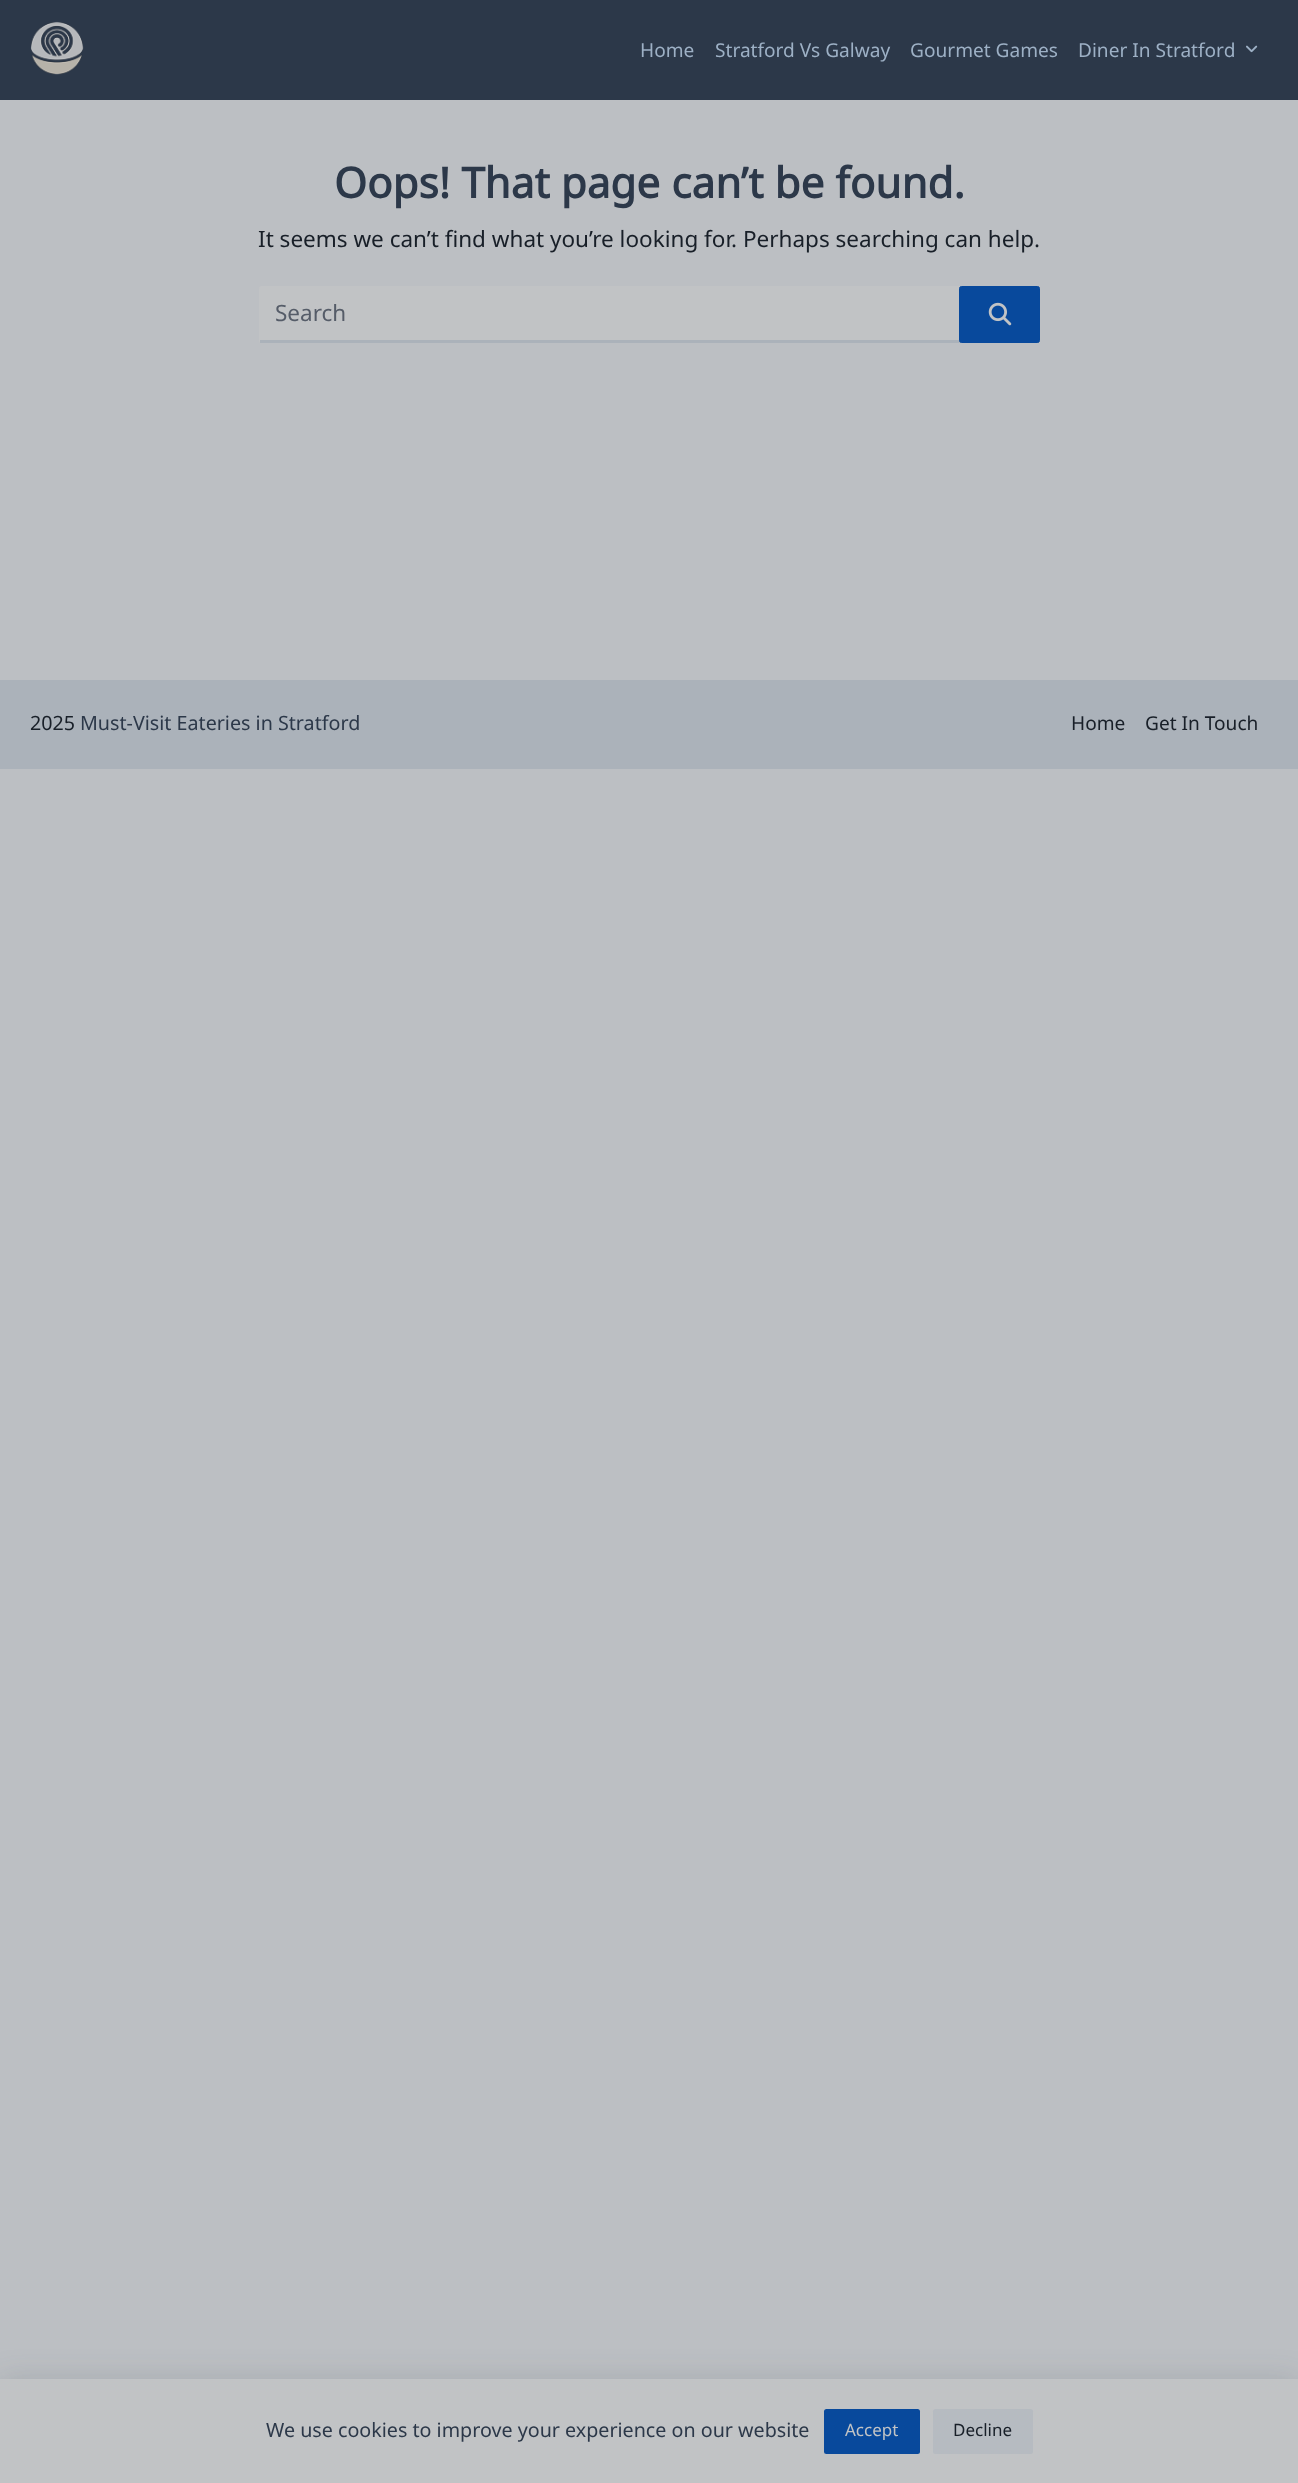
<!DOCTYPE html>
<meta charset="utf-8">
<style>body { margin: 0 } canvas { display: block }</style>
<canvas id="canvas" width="1298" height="2483"></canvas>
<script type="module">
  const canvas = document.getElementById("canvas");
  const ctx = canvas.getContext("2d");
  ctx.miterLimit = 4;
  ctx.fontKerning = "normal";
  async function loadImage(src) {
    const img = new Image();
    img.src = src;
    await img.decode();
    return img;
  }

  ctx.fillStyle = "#bcbfc3";
  ctx.fillRect(0, 0, 1298, 2483);
  ctx.fillStyle = "#2c3849";
  ctx.fillRect(0, 0, 1298, 100);
  ctx.drawImage(await loadImage("img1.png"), 30, 21, 54, 54);
  ctx.font = "19.1px Noto Sans";
  ctx.fillStyle = "#9db0c5";
  ctx.fillText("Home", 640, 57);
  ctx.fillText("Stratford Vs Galway", 715, 57);
  ctx.fillText("Gourmet Games", 910, 57);
  ctx.fillText("Diner In Stratford", 1078, 57);
  ctx.drawImage(await loadImage("img2.png"), 1246, 45, 12, 8);
  ctx.font = "bold 42.25px Noto Sans";
  ctx.fillStyle = "#2c3849";
  ctx.fillText("Oops! That page can’t be found.", 334, 198);
  ctx.font = "22.5px Noto Sans";
  ctx.fillStyle = "#181f28";
  ctx.fillText("It seems we can’t find what you’re looking for. Perhaps searching can help.", 258, 247);
  ctx.fillStyle = "#c1c3c5";
  ctx.beginPath();
  ctx.roundRect(259, 286, 781, 57, 2.5);
  ctx.fill();
  ctx.fillStyle = "#abb2ba";
  ctx.fillRect(260, 340, 779, 3);
  ctx.fillStyle = "#555c68";
  ctx.fillText("Search", 275, 321);
  ctx.fillStyle = "#08499c";
  ctx.beginPath();
  ctx.roundRect(959.5, 286.5, 80, 56, 2);
  ctx.fill();
  ctx.strokeStyle = "#08499c";
  ctx.stroke();
  ctx.drawImage(await loadImage("img3.png"), 988, 302, 24, 24);
  ctx.fillStyle = "#abb2ba";
  ctx.fillRect(0, 680, 1298, 89);
  ctx.font = "19.7px Noto Sans";
  ctx.fillStyle = "#181f28";
  ctx.fillText("2025", 30, 730);
  ctx.fillStyle = "#2c3849";
  ctx.fillText("Must-Visit Eateries in Stratford", 80, 730);
  ctx.font = "19.1px Noto Sans";
  ctx.fillStyle = "#181f28";
  ctx.fillText("Home", 1071, 730);
  ctx.fillText("Get In Touch", 1145, 730);
  ctx.fillStyle = "rgba(39, 54, 69, 0.15)";
  ctx.filter = "blur(15px)";
  ctx.beginPath();
  ctx.rect(0, 2379, 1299, 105);
  ctx.fill();
  ctx.filter = "none";
  ctx.fillStyle = "#c1c3c5";
  ctx.fillRect(0, 2379, 1298, 104);
  ctx.font = "19.7px Noto Sans";
  ctx.fillStyle = "#2c3849";
  ctx.fillText("We use cookies to improve your experience on our website", 266, 2437);
  ctx.fillStyle = "#08499c";
  ctx.beginPath();
  ctx.roundRect(824, 2409, 96, 45, 2.5);
  ctx.fill();
  ctx.font = "17px Noto Sans";
  ctx.fillStyle = "#c1c3c5";
  ctx.fillText("Accept", 845, 2436);
  ctx.fillStyle = "#b6bbc1";
  ctx.beginPath();
  ctx.roundRect(933, 2409, 100, 45, 2.5);
  ctx.fill();
  ctx.fillStyle = "#181f28";
  ctx.fillText("Decline", 953, 2436);
</script>
